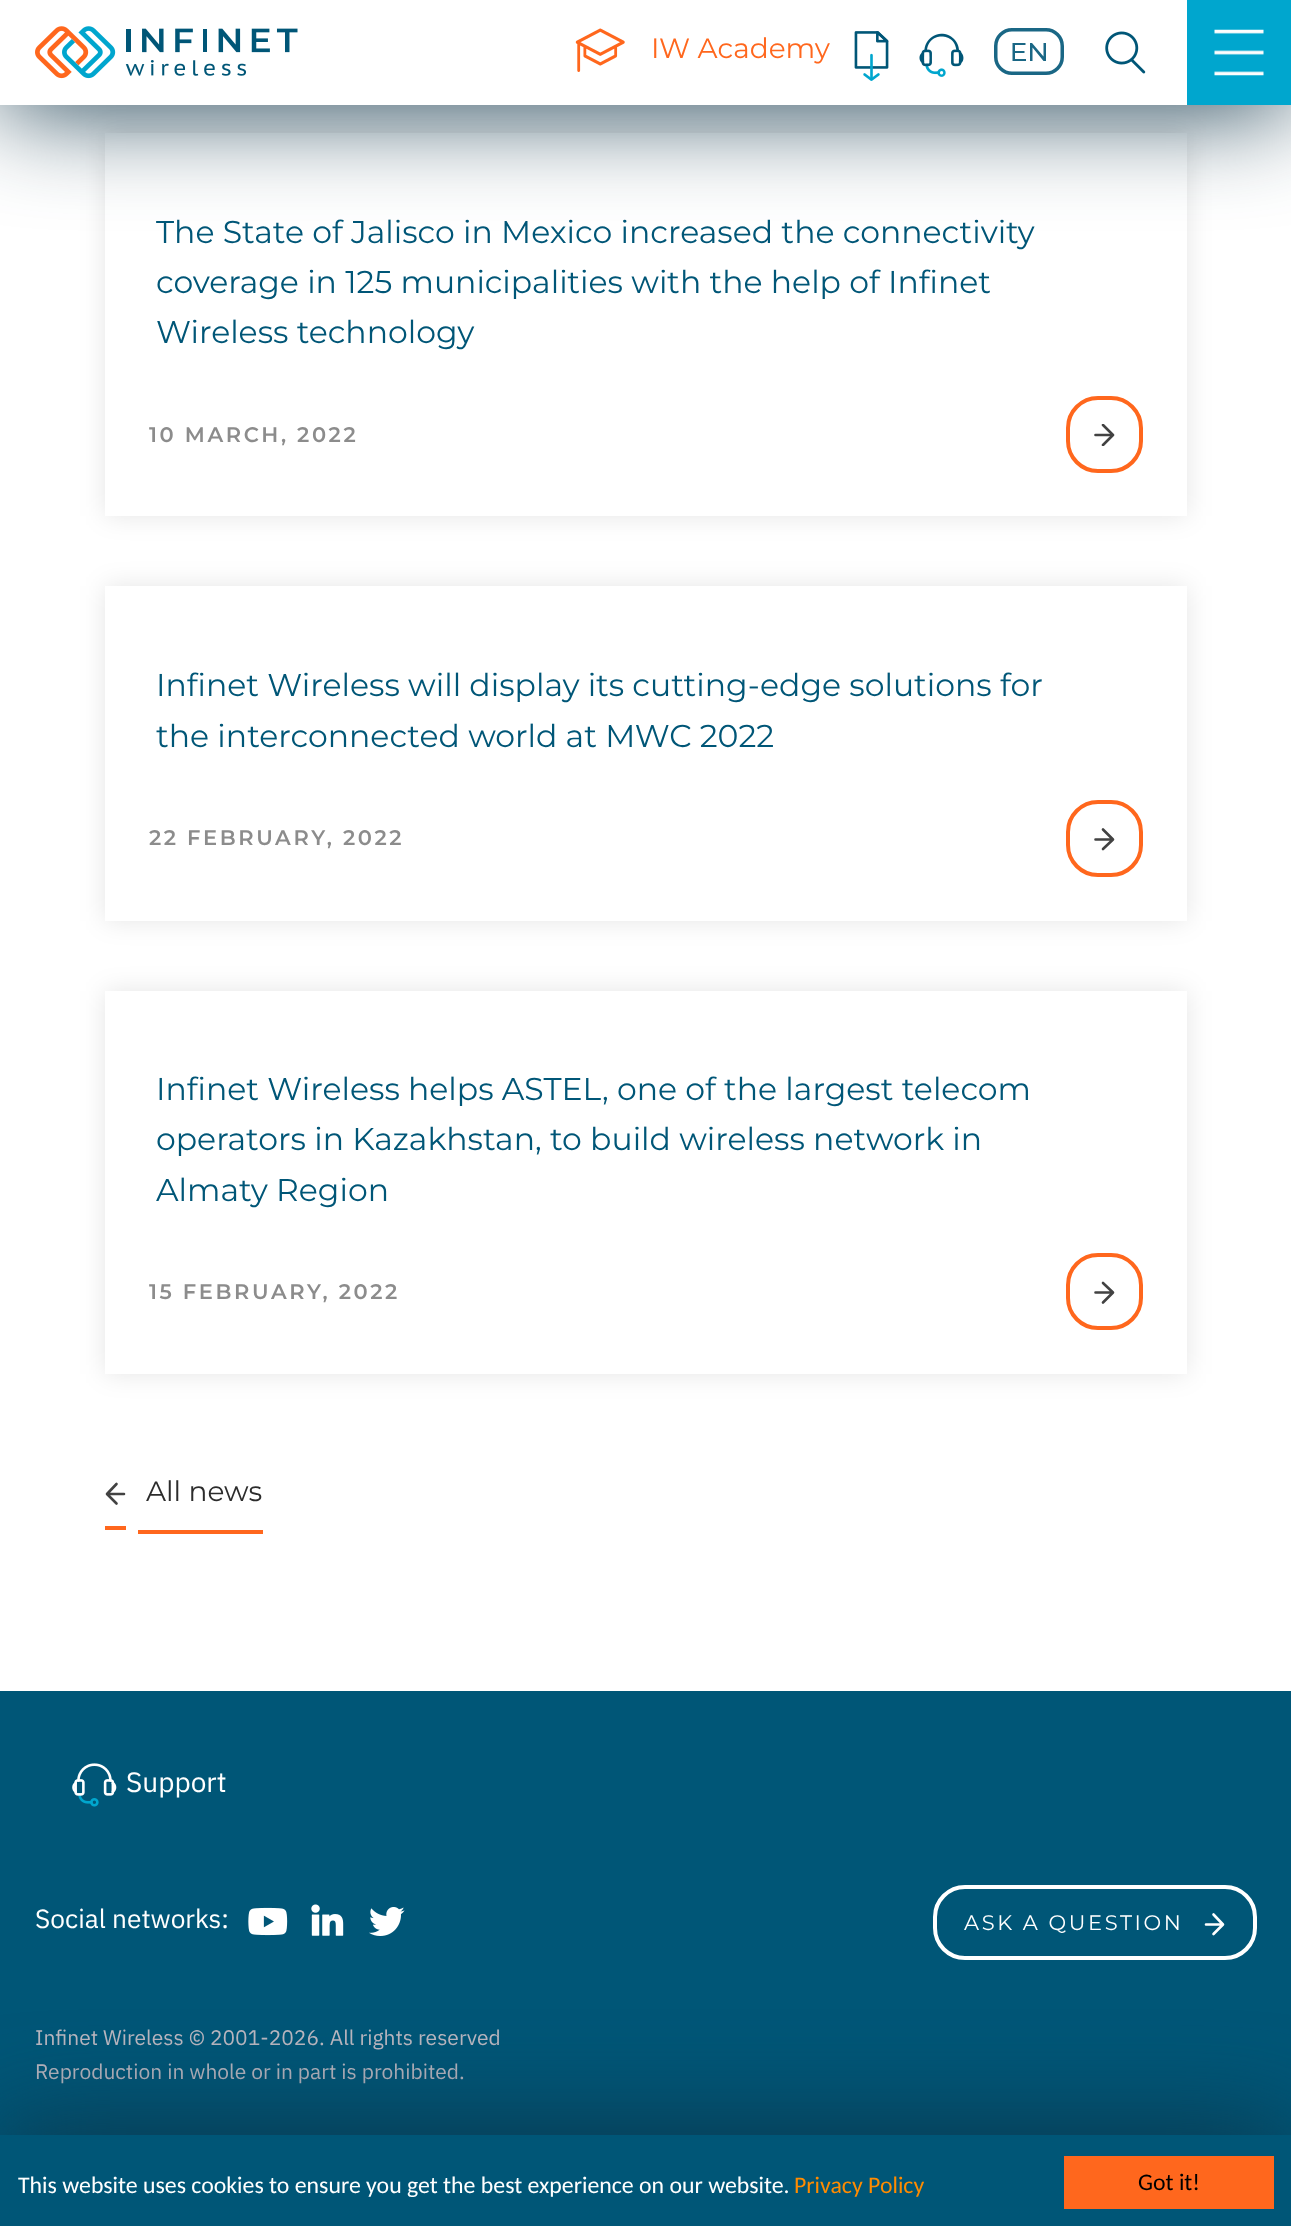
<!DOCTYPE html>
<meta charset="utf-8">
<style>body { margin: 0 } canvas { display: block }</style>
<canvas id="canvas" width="1291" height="2226"></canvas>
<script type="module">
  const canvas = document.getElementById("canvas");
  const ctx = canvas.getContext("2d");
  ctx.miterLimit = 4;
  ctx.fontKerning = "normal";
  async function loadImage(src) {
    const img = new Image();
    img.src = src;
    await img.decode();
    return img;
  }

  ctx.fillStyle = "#ffffff";
  ctx.fillRect(0, 0, 1291, 2226);
  ctx.fillStyle = "rgba(0, 0, 0, 0.1)";
  ctx.filter = "blur(13px)";
  ctx.beginPath();
  ctx.rect(105, 133, 1082, 383);
  ctx.fill();
  ctx.filter = "none";
  ctx.fillStyle = "#ffffff";
  ctx.fillRect(105, 133, 1082, 383);
  ctx.fillStyle = "#0c3246";
  ctx.filter = "blur(52.5px)";
  ctx.beginPath();
  ctx.rect(0, 0, 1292, 105);
  ctx.fill();
  ctx.filter = "none";
  ctx.fillStyle = "#ffffff";
  ctx.fillRect(0, 0, 1187, 105);
  ctx.drawImage(await loadImage("img1.png"), 35, 26, 263, 53);
  ctx.drawImage(await loadImage("img2.png"), 575, 28, 50, 44);
  ctx.font = "28px Montserrat";
  ctx.fillStyle = "#ff671d";
  ctx.fillText("IW Academy", 651, 58);
  ctx.drawImage(await loadImage("img3.png"), 854, 31, 35, 50);
  ctx.drawImage(await loadImage("img4.png"), 919, 33, 45, 44);
  ctx.beginPath();
  ctx.roundRect(995.75, 29.75, 66.5, 43.5, 16.25);
  ctx.strokeStyle = "#1a6785";
  ctx.lineWidth = 3.5;
  ctx.stroke();
  ctx.fillStyle = "#1a6785";
  ctx.beginPath();
  ctx.moveTo(1026, 59);
  ctx.lineTo(1026, 61);
  ctx.lineTo(1012.5, 61);
  ctx.lineTo(1012.5, 43);
  ctx.lineTo(1025.5, 43);
  ctx.lineTo(1025.5, 45);
  ctx.lineTo(1015, 45);
  ctx.lineTo(1015, 51);
  ctx.lineTo(1024.5, 51);
  ctx.lineTo(1024.5, 53);
  ctx.lineTo(1015, 53);
  ctx.lineTo(1015, 59);
  ctx.closePath();
  ctx.moveTo(1046, 43);
  ctx.lineTo(1046, 61);
  ctx.lineTo(1043.5, 61);
  ctx.lineTo(1032.5, 47.5);
  ctx.lineTo(1032.5, 61);
  ctx.lineTo(1030, 61);
  ctx.lineTo(1030, 43);
  ctx.lineTo(1032, 43);
  ctx.lineTo(1043.5, 56.5);
  ctx.lineTo(1043.5, 43);
  ctx.closePath();
  ctx.fill();
  ctx.drawImage(await loadImage("img5.png"), 1105, 31, 41, 43);
  ctx.fillStyle = "#00a6ce";
  ctx.fillRect(1187, 0, 104, 105);
  ctx.drawImage(await loadImage("img6.png"), 1214, 29, 50, 47);
  ctx.font = "31.5px Montserrat";
  ctx.fillStyle = "#005677";
  ctx.fillText("The State of Jalisco in Mexico increased the connectivity", 156, 243);
  ctx.fillText("coverage in 125 municipalities with the help of Infinet", 156, 293);
  ctx.fillText("Wireless technology", 156, 343);
  ctx.letterSpacing = "2.6px";
  ctx.font = "600 21px Montserrat";
  ctx.fillStyle = "#8c8c8c";
  ctx.fillText("10 MARCH, 2022", 149, 442);
  ctx.beginPath();
  ctx.roundRect(1068, 398, 73, 73, 30);
  ctx.strokeStyle = "#ff671d";
  ctx.lineWidth = 4;
  ctx.stroke();
  ctx.beginPath();
  ctx.moveTo(1095.5, 435);
  ctx.lineTo(1111.5, 435);
  ctx.strokeStyle = "#424242";
  ctx.lineWidth = 2.6;
  ctx.lineCap = "round";
  ctx.lineJoin = "round";
  ctx.stroke();
  ctx.save();
  ctx.beginPath();
  ctx.rect(1094, 424, 21, 22);
  ctx.clip();
  ctx.beginPath();
  ctx.moveTo(1103, 425);
  ctx.lineTo(1113, 435);
  ctx.lineTo(1103, 445);
  ctx.stroke();
  ctx.restore();
  ctx.fillStyle = "rgba(0, 0, 0, 0.1)";
  ctx.filter = "blur(13px)";
  ctx.beginPath();
  ctx.rect(105, 586, 1082, 335);
  ctx.fill();
  ctx.filter = "none";
  ctx.fillStyle = "#ffffff";
  ctx.fillRect(105, 586, 1082, 335);
  ctx.letterSpacing = "0px";
  ctx.font = "31.5px Montserrat";
  ctx.fillStyle = "#005677";
  ctx.fillText("Infinet Wireless will display its cutting-edge solutions for", 156, 696);
  ctx.fillText("the interconnected world at MWC 2022", 156, 747);
  ctx.letterSpacing = "2.6px";
  ctx.font = "600 21px Montserrat";
  ctx.fillStyle = "#8c8c8c";
  ctx.fillText("22 FEBRUARY, 2022", 149, 845);
  ctx.beginPath();
  ctx.roundRect(1068, 802, 73, 73, 30);
  ctx.strokeStyle = "#ff671d";
  ctx.lineWidth = 4;
  ctx.lineJoin = "miter";
  ctx.stroke();
  ctx.beginPath();
  ctx.moveTo(1095.5, 839.5);
  ctx.lineTo(1111.5, 839.5);
  ctx.moveTo(1103, 829.5);
  ctx.lineTo(1113, 839.5);
  ctx.lineTo(1103, 849);
  ctx.strokeStyle = "#424242";
  ctx.lineWidth = 2.6;
  ctx.lineJoin = "round";
  ctx.stroke();
  ctx.fillStyle = "rgba(0, 0, 0, 0.1)";
  ctx.filter = "blur(13px)";
  ctx.beginPath();
  ctx.rect(105, 991, 1082, 383);
  ctx.fill();
  ctx.filter = "none";
  ctx.fillStyle = "#ffffff";
  ctx.fillRect(105, 991, 1082, 383);
  ctx.letterSpacing = "0px";
  ctx.font = "31.5px Montserrat";
  ctx.fillStyle = "#005677";
  ctx.fillText("Infinet Wireless helps ASTEL, one of the largest telecom", 156, 1100);
  ctx.fillText("operators in Kazakhstan, to build wireless network in", 156, 1150);
  ctx.fillText("Almaty Region", 156, 1201);
  ctx.letterSpacing = "2.6px";
  ctx.font = "600 21px Montserrat";
  ctx.fillStyle = "#8c8c8c";
  ctx.fillText("15 FEBRUARY, 2022", 149, 1299);
  ctx.beginPath();
  ctx.roundRect(1068, 1255, 73, 73, 30);
  ctx.strokeStyle = "#ff671d";
  ctx.lineWidth = 4;
  ctx.lineJoin = "miter";
  ctx.stroke();
  ctx.beginPath();
  ctx.moveTo(1095.5, 1292.5);
  ctx.lineTo(1111.5, 1292.5);
  ctx.moveTo(1103, 1283);
  ctx.lineTo(1113, 1292.5);
  ctx.lineTo(1103, 1302.5);
  ctx.strokeStyle = "#424242";
  ctx.lineWidth = 2.6;
  ctx.lineJoin = "round";
  ctx.stroke();
  ctx.letterSpacing = "0px";
  ctx.font = "28px Montserrat";
  ctx.fillStyle = "#2c2c2c";
  ctx.fillText("All news", 146, 1501);
  ctx.fillStyle = "#ff671d";
  ctx.fillRect(105, 1526, 21, 4);
  ctx.fillRect(138, 1530, 125, 4);
  ctx.beginPath();
  ctx.moveTo(124, 1494);
  ctx.lineTo(108.5, 1494);
  ctx.moveTo(116.5, 1503.5);
  ctx.lineTo(107, 1494);
  ctx.lineTo(116.5, 1484);
  ctx.stroke();
  ctx.fillStyle = "#005677";
  ctx.fillRect(0, 1691, 1291, 444);
  ctx.drawImage(await loadImage("img7.png"), 72, 1763, 45, 44);
  ctx.font = "28px IBM Plex Sans";
  ctx.fillStyle = "#ffffff";
  ctx.fillText("Support", 126, 1792);
  ctx.font = "26.25px IBM Plex Sans";
  ctx.fillText("Social networks:", 35, 1928);
  ctx.drawImage(await loadImage("img8.png"), 248, 1907, 40, 29);
  ctx.drawImage(await loadImage("img9.png"), 311, 1904, 33, 32);
  ctx.drawImage(await loadImage("img10.png"), 369, 1907, 36, 29);
  ctx.beginPath();
  ctx.roundRect(935, 1887, 320, 71, 30);
  ctx.strokeStyle = "#ffffff";
  ctx.lineWidth = 4;
  ctx.lineJoin = "miter";
  ctx.stroke();
  ctx.letterSpacing = "2.6px";
  ctx.font = "21px Montserrat";
  ctx.fillText("ASK A QUESTION", 964, 1930);
  ctx.beginPath();
  ctx.moveTo(1206, 1924.5);
  ctx.lineTo(1221.5, 1924.5);
  ctx.moveTo(1213.5, 1914.5);
  ctx.lineTo(1223, 1924.5);
  ctx.lineTo(1213.5, 1934);
  ctx.lineWidth = 2.6;
  ctx.lineJoin = "round";
  ctx.stroke();
  ctx.letterSpacing = "0px";
  ctx.font = "21px IBM Plex Sans";
  ctx.fillStyle = "#bbb7c0";
  ctx.fillText("Infinet Wireless © 2001-2026. All rights reserved", 35, 2045);
  ctx.fillText("Reproduction in whole or in part is prohibited.", 35, 2079);
  ctx.fillStyle = "#0c3246";
  ctx.filter = "blur(52.5px)";
  ctx.beginPath();
  ctx.rect(0, 2135, 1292, 91);
  ctx.fill();
  ctx.filter = "none";
  ctx.fillStyle = "#005677";
  ctx.fillRect(0, 2135, 1291, 91);
  ctx.font = "23.8px Carlito";
  ctx.fillStyle = "#ffffff";
  ctx.fillText("This website uses cookies to ensure you get the best experience on our website.", 18, 2193);
  ctx.fillStyle = "#ff8b00";
  ctx.fillText("Privacy Policy", 794, 2193);
  ctx.fillStyle = "#ff671d";
  ctx.fillRect(1064, 2156, 210, 53);
  ctx.fillStyle = "#000000";
  ctx.fillText("Got it!", 1138, 2190);
</script>
